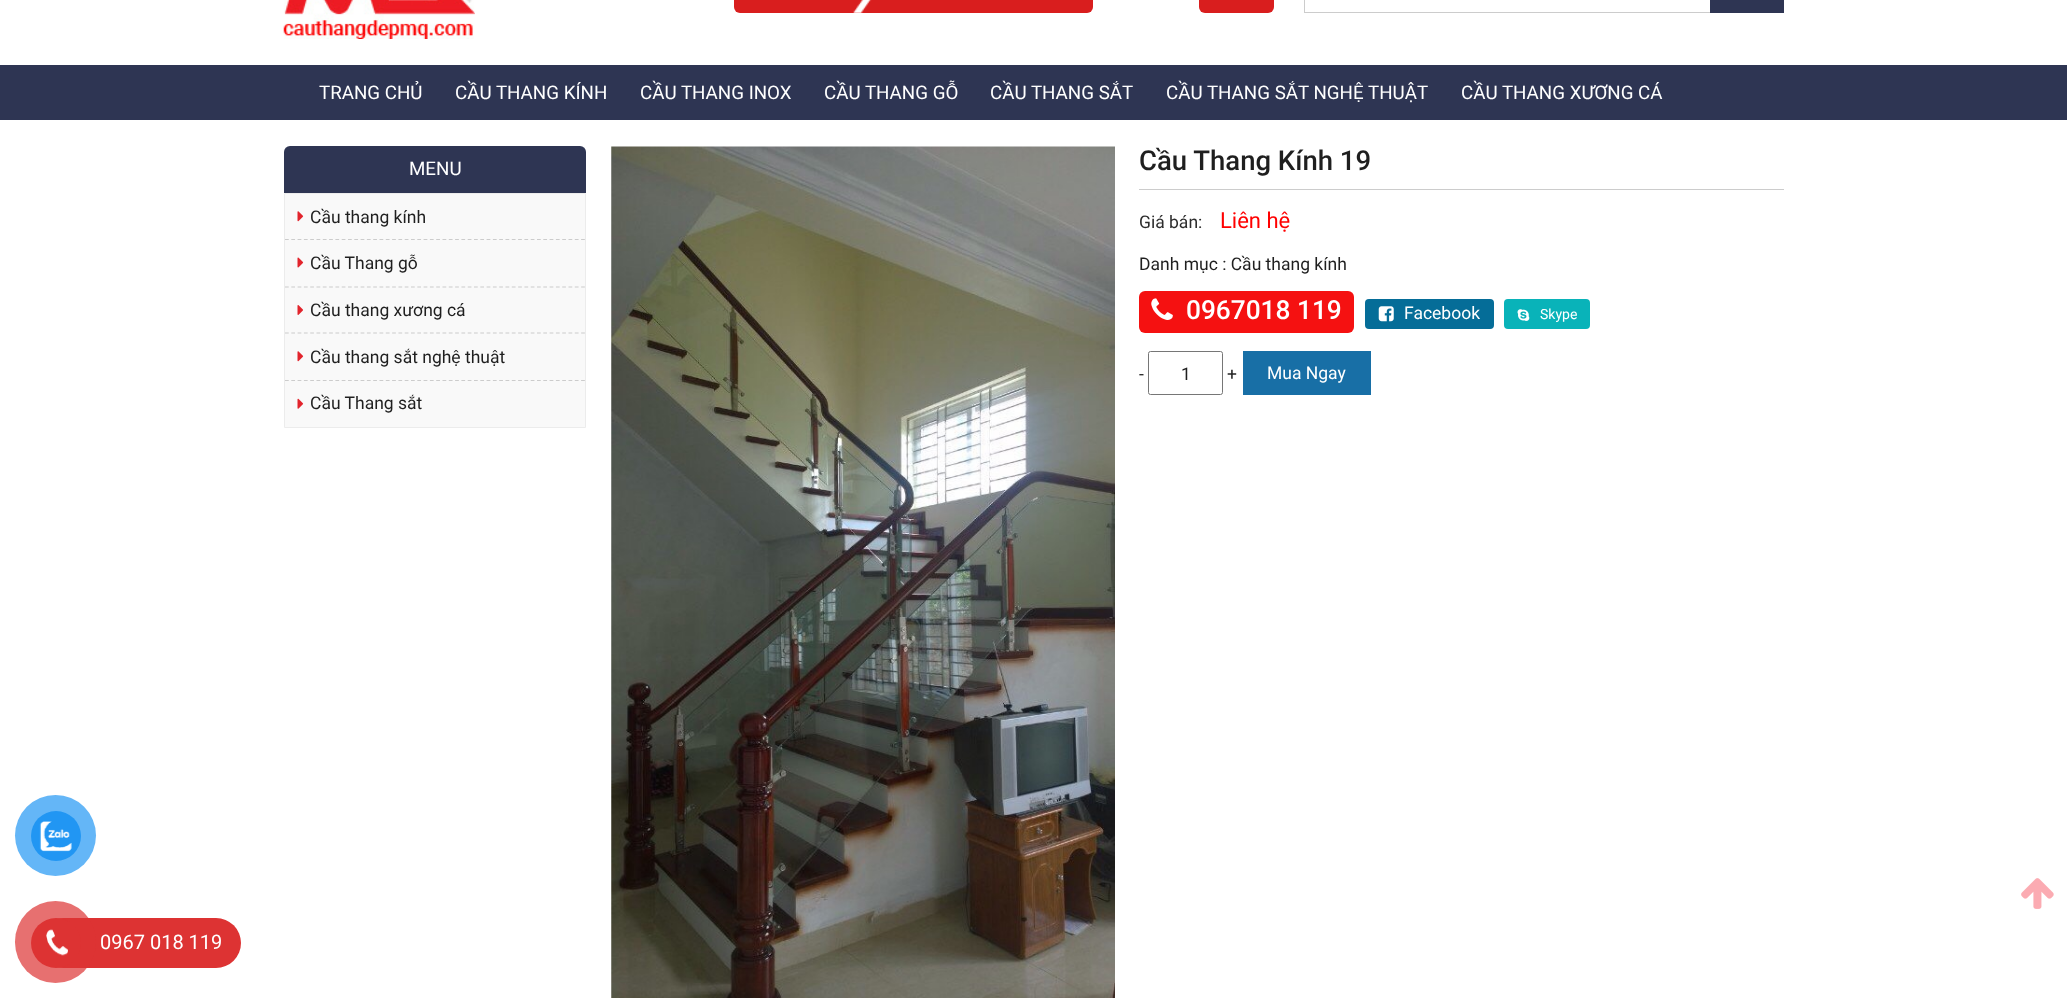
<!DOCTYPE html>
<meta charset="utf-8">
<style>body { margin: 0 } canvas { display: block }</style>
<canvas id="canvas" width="2067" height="998"></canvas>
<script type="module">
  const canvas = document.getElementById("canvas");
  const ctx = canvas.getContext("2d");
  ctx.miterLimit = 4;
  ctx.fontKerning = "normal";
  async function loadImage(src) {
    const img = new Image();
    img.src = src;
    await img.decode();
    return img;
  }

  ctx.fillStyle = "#ffffff";
  ctx.fillRect(0, 0, 2067, 998);
  ctx.drawImage(await loadImage("img1.png"), 283, 0, 192, 39);
  ctx.fillStyle = "#d91e1e";
  ctx.beginPath();
  ctx.roundRect(734, -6, 359, 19, 6);
  ctx.fill();
  ctx.drawImage(await loadImage("img2.png"), 853, 0, 19, 13);
  ctx.beginPath();
  ctx.roundRect(1199, -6, 75, 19, 6);
  ctx.fill();
  ctx.strokeStyle = "#cccccc";
  ctx.strokeRect(1304.5, -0.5, 479, 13);
  ctx.fillStyle = "#2e3553";
  ctx.fillRect(1710, 0, 74, 13);
  ctx.fillRect(0, 65, 2067, 55);
  ctx.font = "18.75px Roboto";
  ctx.fillStyle = "#ffffff";
  ctx.fillText("TRANG CHỦ", 319, 99);
  ctx.fillText("CẦU THANG KÍNH", 455, 99);
  ctx.fillText("CẦU THANG INOX", 640, 99);
  ctx.fillText("CẦU THANG GỖ", 824, 99);
  ctx.fillText("CẦU THANG SẮT", 990, 99);
  ctx.fillText("CẦU THANG SẮT NGHỆ THUẬT", 1166, 99);
  ctx.fillText("CẦU THANG XƯƠNG CÁ", 1461, 99);
  ctx.fillStyle = "#2e3553";
  ctx.beginPath();
  ctx.roundRect(284, 146, 302, 47, [6, 6, 0, 0]);
  ctx.fill();
  ctx.fillStyle = "#ffffff";
  ctx.fillText("MENU", 409, 175);
  ctx.fillStyle = "#f9f9f9";
  ctx.beginPath();
  ctx.rect(284.5, 193.5, 301, 234);
  ctx.fill();
  ctx.strokeStyle = "#ececec";
  ctx.stroke();
  ctx.drawImage(await loadImage("img3.png"), 297, 211, 7, 11);
  ctx.font = "17.5px Roboto";
  ctx.fillStyle = "#1f1f1f";
  ctx.fillText("Cầu thang kính", 310, 223);
  ctx.beginPath();
  ctx.moveTo(285, 239.5);
  ctx.lineTo(585, 239.5);
  ctx.strokeStyle = "#cccccc";
  ctx.lineWidth = 1.2;
  ctx.setLineDash([3.75, 2.55]);
  ctx.stroke();
  ctx.drawImage(await loadImage("img4.png"), 297, 257, 7, 11);
  ctx.fillText("Cầu Thang gỗ", 310, 269);
  ctx.beginPath();
  ctx.moveTo(285, 287);
  ctx.lineTo(585, 287);
  ctx.stroke();
  ctx.drawImage(await loadImage("img5.png"), 297, 305, 6, 10);
  ctx.fillText("Cầu thang xương cá", 310, 316);
  ctx.beginPath();
  ctx.moveTo(285, 333);
  ctx.lineTo(585, 333);
  ctx.stroke();
  ctx.drawImage(await loadImage("img3.png"), 297, 351, 7, 11);
  ctx.fillText("Cầu thang sắt nghệ thuật", 310, 363);
  ctx.beginPath();
  ctx.moveTo(285, 380.5);
  ctx.lineTo(585, 380.5);
  ctx.stroke();
  ctx.drawImage(await loadImage("img6.png"), 297, 398, 7, 11);
  ctx.fillText("Cầu Thang sắt", 310, 409);
  ctx.drawImage(await loadImage("img7.png"), 611, 146, 504, 852);
  ctx.font = "500 27.5px Roboto";
  ctx.fillText("Cầu Thang Kính 19", 1139, 170);
  ctx.fillStyle = "#cccccc";
  ctx.fillRect(1139, 189, 645, 1);
  ctx.font = "17.5px Roboto";
  ctx.fillStyle = "#2d2d2d";
  ctx.fillText("Giá bán:", 1139, 228);
  ctx.font = "22px Roboto";
  ctx.fillStyle = "#ff0000";
  ctx.fillText("Liên hệ", 1220, 228);
  ctx.font = "17.5px Roboto";
  ctx.fillStyle = "#1f1f1f";
  ctx.fillText("Danh mục : Cầu thang kính", 1139, 270);
  ctx.fillStyle = "#f51111";
  ctx.beginPath();
  ctx.roundRect(1139, 291, 215, 42, 6);
  ctx.fill();
  ctx.drawImage(await loadImage("img8.png"), 1151, 298, 22, 22);
  ctx.font = "500 26.25px Roboto";
  ctx.fillStyle = "#ffffff";
  ctx.fillText("0967018 119", 1186, 319);
  ctx.fillStyle = "#056d98";
  ctx.beginPath();
  ctx.roundRect(1365, 299, 129, 30, 4);
  ctx.fill();
  ctx.drawImage(await loadImage("img9.png"), 1378, 306, 16, 16);
  ctx.font = "17.5px Roboto";
  ctx.fillStyle = "#ffffff";
  ctx.fillText("Facebook", 1404, 319);
  ctx.fillStyle = "#09b3b9";
  ctx.beginPath();
  ctx.roundRect(1504, 299, 86, 30, 4);
  ctx.fill();
  ctx.drawImage(await loadImage("img10.png"), 1517, 309, 13, 12);
  ctx.font = "14px Roboto";
  ctx.fillStyle = "#ffffff";
  ctx.fillText("Skype", 1540, 319);
  ctx.font = "17.5px Roboto";
  ctx.fillStyle = "#1f1f1f";
  ctx.fillText("-", 1139, 380);
  ctx.beginPath();
  ctx.roundRect(1148.5, 351.5, 74, 43, 2);
  ctx.strokeStyle = "#767676";
  ctx.lineWidth = 1;
  ctx.setLineDash([]);
  ctx.stroke();
  ctx.fillText("1", 1181, 380);
  ctx.fillText("+", 1227, 380);
  ctx.fillStyle = "#186fa6";
  ctx.fillRect(1243, 351, 128, 44);
  ctx.fillStyle = "#ffffff";
  ctx.fillText("Mua Ngay", 1267, 379);
  ctx.drawImage(await loadImage("img11.png"), 2021, 878, 33, 31);
  ctx.fillStyle = "#64b6f7";
  ctx.beginPath();
  ctx.arc(55.5, 835.5, 40.5, 0, Math.PI * 2);
  ctx.fill();
  ctx.fillStyle = "#2196f3";
  ctx.beginPath();
  ctx.arc(56, 836, 25, 0, Math.PI * 2);
  ctx.fill();
  ctx.drawImage(await loadImage("img12.png"), 39, 821, 33, 31);
  ctx.fillStyle = "#dd3333";
  ctx.beginPath();
  ctx.roundRect(38, 918, 203, 50, 25);
  ctx.fill();
  ctx.fillStyle = "rgba(221, 51, 51, 0.7)";
  ctx.beginPath();
  ctx.roundRect(15, 901, 81, 82, 40.5);
  ctx.fill();
  ctx.fillStyle = "#dd3333";
  ctx.beginPath();
  ctx.arc(56, 943, 25, 0, Math.PI * 2);
  ctx.fill();
  ctx.drawImage(await loadImage("img13.png"), 46, 929, 22, 27);
  ctx.font = "20px Roboto";
  ctx.fillStyle = "#ffffff";
  ctx.fillText("0967 018 119", 100, 949);
</script>
